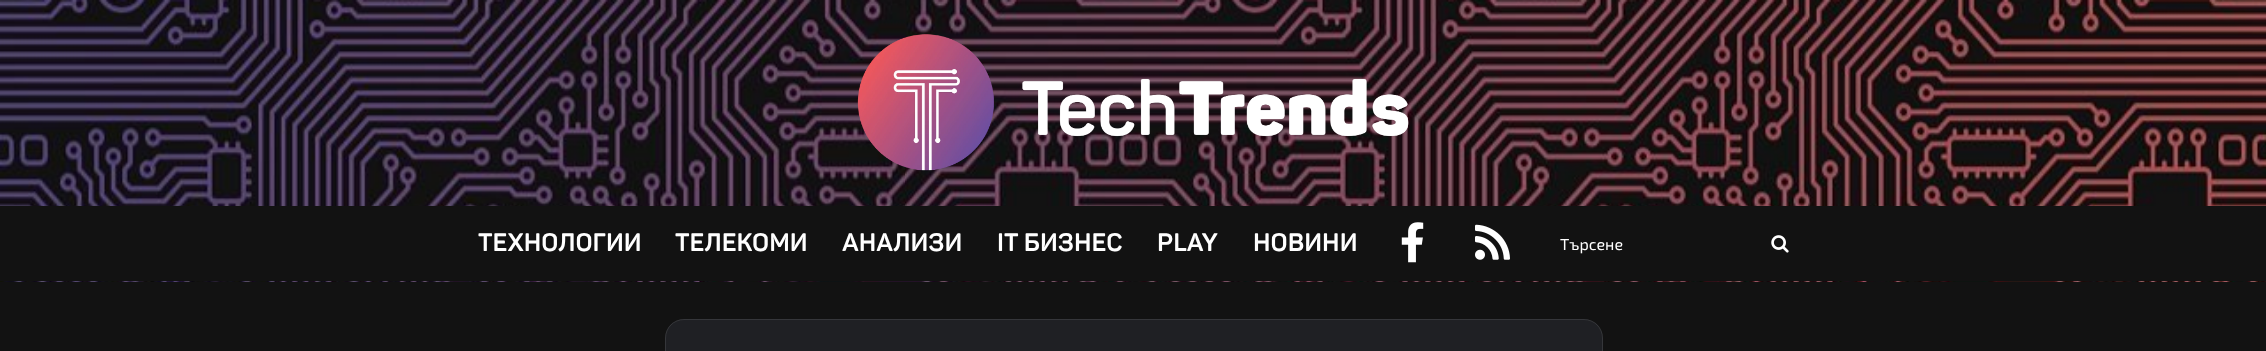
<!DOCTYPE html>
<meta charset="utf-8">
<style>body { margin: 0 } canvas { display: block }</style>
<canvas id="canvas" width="2266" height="351"></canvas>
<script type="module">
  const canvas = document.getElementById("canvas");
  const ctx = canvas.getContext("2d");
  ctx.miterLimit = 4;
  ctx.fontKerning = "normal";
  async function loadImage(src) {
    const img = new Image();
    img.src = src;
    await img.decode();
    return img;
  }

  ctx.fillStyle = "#121212";
  ctx.fillRect(0, 0, 2266, 351);
  ctx.drawImage(await loadImage("img1.png"), 0, 0, 2266, 282);
  ctx.drawImage(await loadImage("img2.png"), 857, 34, 552, 137);
  ctx.fillRect(0, 206, 2266, 75);
  ctx.font = "bold 25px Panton";
  ctx.fillStyle = "#ffffff";
  ctx.fillText("ТЕХНОЛОГИИ", 478, 251);
  ctx.fillText("ТЕЛЕКОМИ", 675, 251);
  ctx.fillText("АНАЛИЗИ", 842, 251);
  ctx.fillText("IT БИЗНЕС", 997, 251);
  ctx.fillText("PLAY", 1157, 251);
  ctx.fillText("НОВИНИ", 1253, 251);
  ctx.drawImage(await loadImage("img3.png"), 1401, 222, 23, 41);
  ctx.drawImage(await loadImage("img4.png"), 1475, 224, 35, 36);
  ctx.font = "16px 'Exo 2'";
  ctx.fillText("Търсене", 1560, 250);
  ctx.drawImage(await loadImage("img5.png"), 1771, 235, 18, 18);
  ctx.fillStyle = "#1f2024";
  ctx.beginPath();
  ctx.roundRect(665, 319, 938, 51, 19);
  ctx.fill();
  ctx.beginPath();
  ctx.roundRect(665.5, 319.5, 937, 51, 18.5);
  ctx.strokeStyle = "rgba(255, 255, 255, 0.1)";
  ctx.stroke();
</script>
